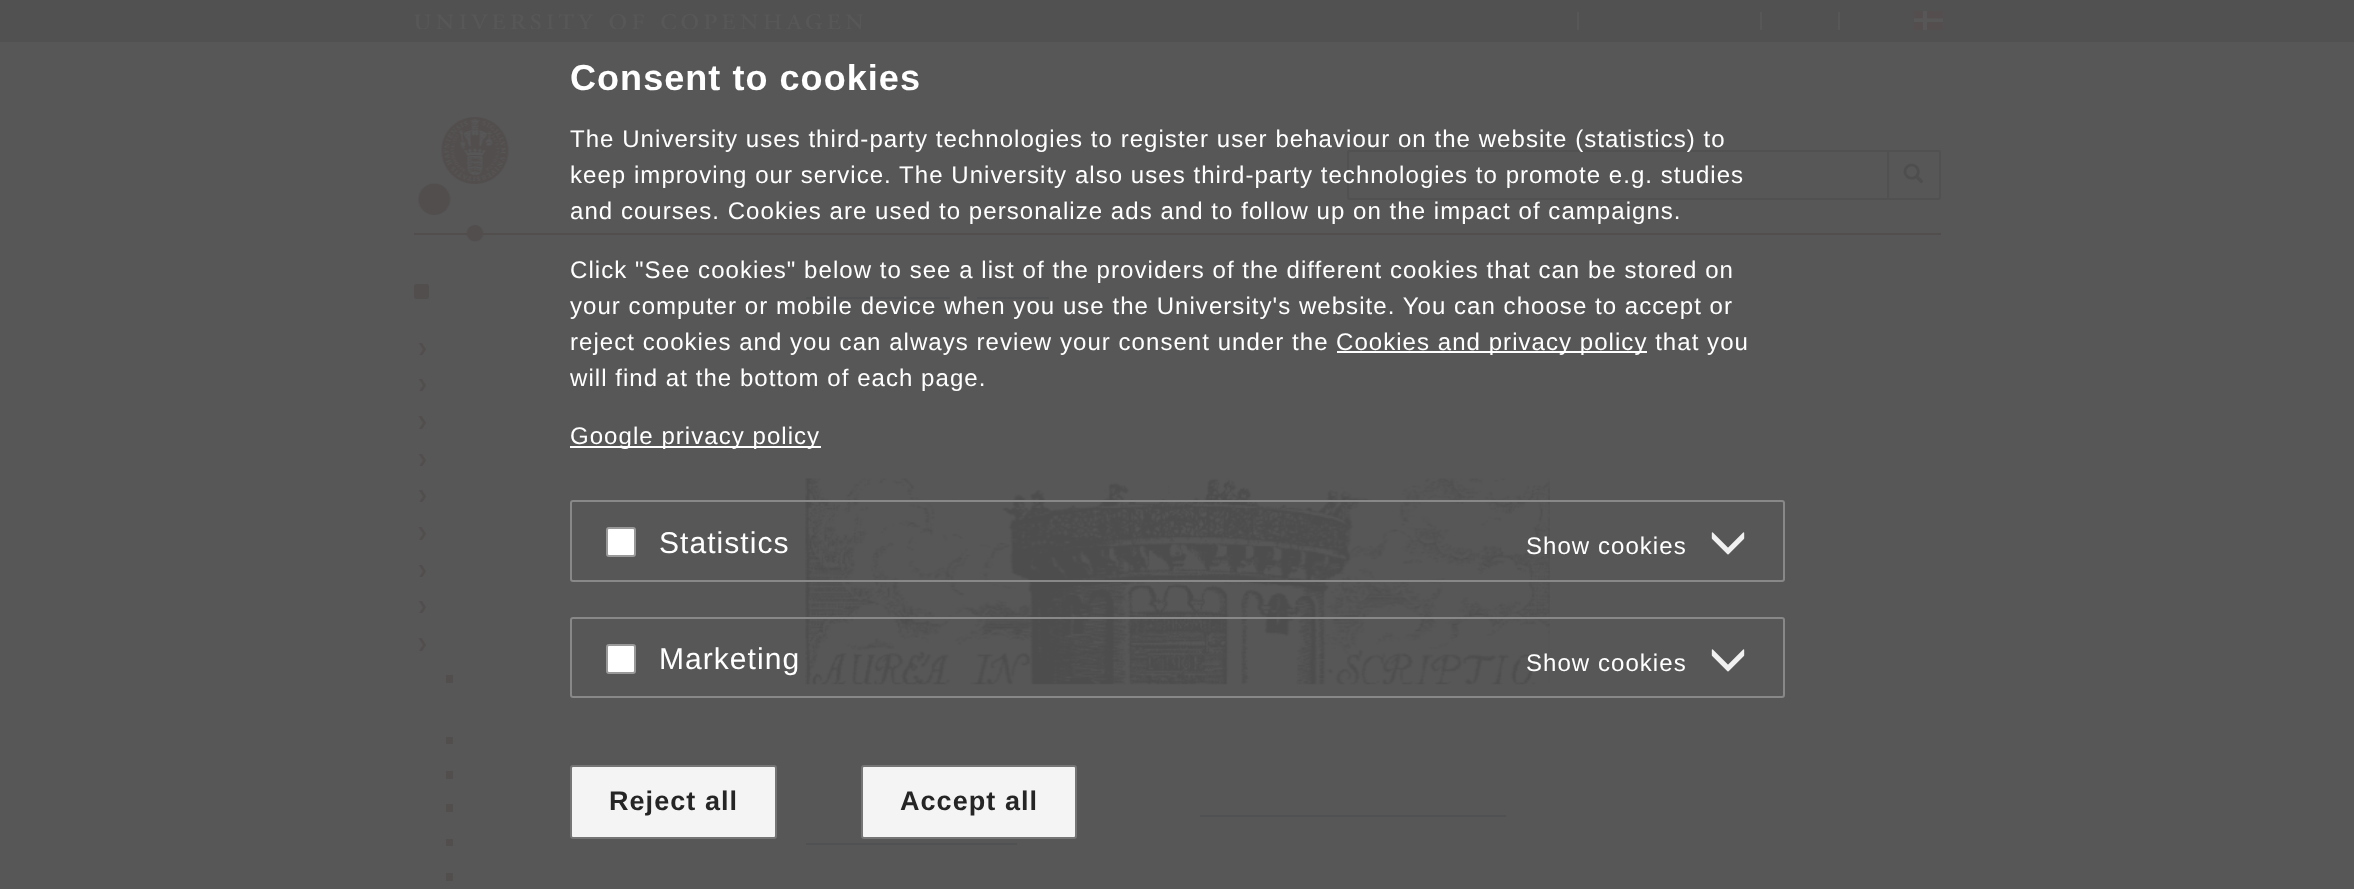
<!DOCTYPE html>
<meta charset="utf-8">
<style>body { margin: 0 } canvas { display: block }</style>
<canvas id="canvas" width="2354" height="889"></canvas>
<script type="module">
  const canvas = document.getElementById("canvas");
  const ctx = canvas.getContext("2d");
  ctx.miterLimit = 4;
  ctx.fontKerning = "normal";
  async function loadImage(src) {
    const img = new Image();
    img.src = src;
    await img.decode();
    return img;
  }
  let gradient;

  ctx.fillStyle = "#575757";
  ctx.fillRect(0, 0, 2354, 889);
  ctx.fillStyle = "#515151";
  ctx.fillRect(0, 0, 2354, 42);
  ctx.drawImage(await loadImage("img1.png"), 414, 14, 450, 15);
  ctx.fillStyle = "#575757";
  ctx.fillRect(1577, 12, 2, 18);
  ctx.fillRect(1760, 12, 2, 18);
  ctx.fillRect(1838, 12, 2, 18);
  ctx.drawImage(await loadImage("img2.png"), 1914, 11, 29, 19);
  ctx.letterSpacing = "1.05px";
  ctx.font = "bold 36px Liberation Sans";
  ctx.fillStyle = "#ffffff";
  ctx.fillText("Consent to cookies", 570, 90);
  ctx.beginPath();
  ctx.roundRect(1348, 151, 541, 48, [2, 0, 0, 2]);
  ctx.strokeStyle = "#515151";
  ctx.lineWidth = 2;
  ctx.stroke();
  ctx.font = "24px Liberation Sans";
  ctx.fillText("The University uses third-party technologies to register user behaviour on the website (statistics) to", 570, 147);
  ctx.fillText("keep improving our service. The University also uses third-party technologies to promote e.g. studies", 570, 183);
  ctx.fillText("and courses. Cookies are used to personalize ads and to follow up on the impact of campaigns.", 570, 219);
  ctx.fillText("Click \"See cookies\" below to see a list of the providers of the different cookies that can be stored on", 570, 278);
  ctx.fillStyle = "#4f5153";
  ctx.fillRect(806, 297, 144, 2);
  ctx.fillRect(977, 297, 72, 2);
  ctx.fillStyle = "#ffffff";
  ctx.fillText("your computer or mobile device when you use the University's website. You can choose to accept or", 570, 314);
  ctx.fillText("reject cookies and you can always review your consent under the", 570, 350);
  ctx.fillRect(1337, 351, 310, 2);
  ctx.fillText("Cookies and privacy policy that you", 1336, 350);
  ctx.fillText("will find at the bottom of each page.", 570, 386);
  ctx.fillRect(570, 446, 251, 2);
  ctx.fillText("Google privacy policy", 570, 444);
  ctx.drawImage(await loadImage("img8.png"), 805, 478, 745, 207);
  ctx.beginPath();
  ctx.roundRect(571, 501, 1213, 80, 2);
  ctx.strokeStyle = "#888888";
  ctx.stroke();
  ctx.beginPath();
  ctx.roundRect(607, 528, 28, 28, 2);
  ctx.fill();
  ctx.strokeStyle = "#999999";
  ctx.stroke();
  ctx.font = "30px Liberation Sans";
  ctx.fillText("Statistics", 659, 553);
  ctx.font = "24px Liberation Sans";
  ctx.fillText("Show cookies", 1526, 554);
  ctx.drawImage(await loadImage("img3.png"), 1711, 532, 34, 23);
  ctx.beginPath();
  ctx.roundRect(571, 618, 1213, 79, 2);
  ctx.strokeStyle = "#888888";
  ctx.stroke();
  ctx.beginPath();
  ctx.roundRect(607, 645, 28, 28, 2);
  ctx.fill();
  ctx.strokeStyle = "#999999";
  ctx.stroke();
  ctx.font = "30px Liberation Sans";
  ctx.fillText("Marketing", 659, 669);
  ctx.font = "24px Liberation Sans";
  ctx.fillText("Show cookies", 1526, 671);
  ctx.drawImage(await loadImage("img3.png"), 1711, 649, 34, 23);
  ctx.fillStyle = "#f4f4f4";
  ctx.beginPath();
  ctx.roundRect(571, 766, 205, 72, 2);
  ctx.fill();
  ctx.strokeStyle = "#757575";
  ctx.stroke();
  ctx.font = "bold 27px Liberation Sans";
  ctx.fillStyle = "#252525";
  ctx.fillText("Reject all", 609, 810);
  ctx.fillStyle = "#f4f4f4";
  ctx.beginPath();
  ctx.roundRect(862, 766, 214, 72, 2);
  ctx.fill();
  ctx.stroke();
  ctx.fillStyle = "#252525";
  ctx.fillText("Accept all", 900, 810);
  ctx.fillStyle = "#534e4e";
  ctx.fillRect(414, 233, 1527, 2);
  ctx.drawImage(await loadImage("img4.png"), 418, 117, 91, 125);
  gradient = ctx.createLinearGradient(1914, 152, 1914, 198);
  gradient.addColorStop(0, "#565656");
  gradient.addColorStop(1, "#565656");
  ctx.fillStyle = gradient;
  ctx.fillRect(1889, 152, 1, 46);
  ctx.beginPath();
  ctx.roundRect(1888, 151, 52, 48, [0, 2, 2, 0]);
  ctx.strokeStyle = "#515151";
  ctx.stroke();
  ctx.drawImage(await loadImage("img5.png"), 1903, 163, 21, 21);
  ctx.fillStyle = "#534e4e";
  ctx.beginPath();
  ctx.roundRect(414, 284, 15, 15, 3);
  ctx.fill();
  ctx.drawImage(await loadImage("img6.png"), 418, 343, 8, 12);
  ctx.drawImage(await loadImage("img6.png"), 418, 379, 8, 12);
  ctx.drawImage(await loadImage("img7.png"), 418, 416, 8, 13);
  ctx.drawImage(await loadImage("img6.png"), 418, 454, 8, 12);
  ctx.drawImage(await loadImage("img6.png"), 418, 490, 8, 12);
  ctx.drawImage(await loadImage("img7.png"), 418, 527, 8, 13);
  ctx.drawImage(await loadImage("img6.png"), 418, 565, 8, 12);
  ctx.drawImage(await loadImage("img6.png"), 418, 601, 8, 12);
  ctx.drawImage(await loadImage("img7.png"), 418, 638, 8, 13);
  ctx.fillRect(446, 675, 7, 8);
  ctx.fillRect(446, 737, 7, 7);
  ctx.fillRect(446, 771, 7, 8);
  ctx.fillRect(446, 804, 7, 8);
  ctx.fillRect(446, 839, 7, 7);
  ctx.fillRect(446, 873, 7, 8);
  ctx.fillStyle = "#4f5153";
  ctx.fillRect(1200, 815, 306, 2);
  ctx.fillRect(806, 843, 211, 2);
</script>
